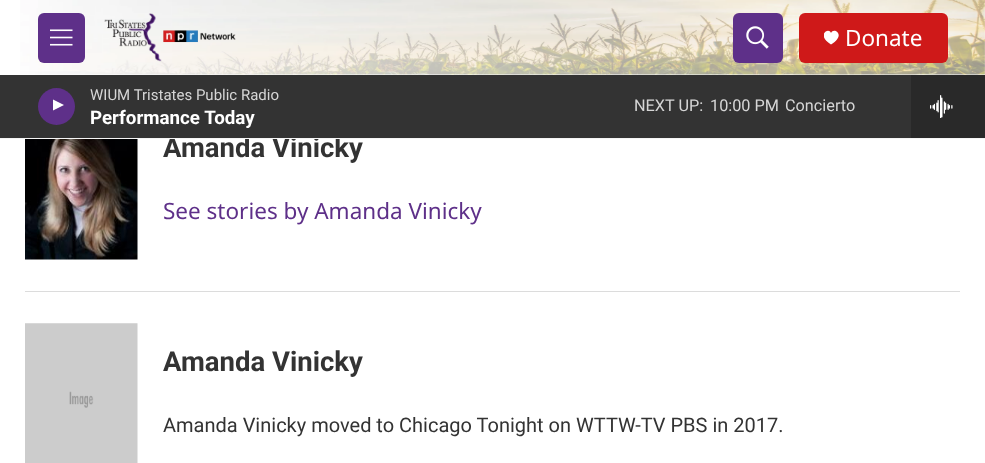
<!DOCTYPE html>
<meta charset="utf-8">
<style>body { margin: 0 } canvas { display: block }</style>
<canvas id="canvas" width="985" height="463"></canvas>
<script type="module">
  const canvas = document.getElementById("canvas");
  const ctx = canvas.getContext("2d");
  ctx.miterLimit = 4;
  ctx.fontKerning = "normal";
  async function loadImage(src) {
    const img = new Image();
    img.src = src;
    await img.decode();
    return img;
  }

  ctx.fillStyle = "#ffffff";
  ctx.fillRect(0, 0, 985, 463);
  ctx.font = "bold 27.5px Roboto";
  ctx.fillStyle = "#333333";
  ctx.fillText("Amanda Vinicky", 163, 157);
  ctx.fillStyle = "#f5f5f5";
  ctx.fillRect(0, 138, 985, 1);
  ctx.drawImage(await loadImage("img1.png"), 20, 0, 965, 75);
  ctx.fillStyle = "#5e3089";
  ctx.beginPath();
  ctx.roundRect(38, 13, 47, 50, 6);
  ctx.fill();
  ctx.drawImage(await loadImage("img2.png"), 50, 29, 23, 17);
  ctx.drawImage(await loadImage("img3.png"), 104, 13, 132, 49);
  ctx.beginPath();
  ctx.roundRect(733, 13, 50, 50, 6);
  ctx.fill();
  ctx.drawImage(await loadImage("img4.png"), 746, 26, 23, 23);
  ctx.fillStyle = "#cf1919";
  ctx.beginPath();
  ctx.roundRect(799, 13, 149, 50, 6);
  ctx.fill();
  ctx.save();
  ctx.beginPath();
  ctx.rect(824, 30, 15, 15);
  ctx.clip();
  ctx.fillStyle = "#ffffff";
  ctx.beginPath();
  ctx.moveTo(831, 33);
  ctx.bezierCurveTo(829, 26.5, 815.5, 35, 831, 44.5);
  ctx.bezierCurveTo(847, 35, 833.5, 26.5, 831, 33);
  ctx.closePath();
  ctx.fill();
  ctx.restore();
  ctx.font = "22.5px Noto Sans";
  ctx.fillStyle = "#ffffff";
  ctx.fillText("Donate", 845, 46);
  ctx.fillStyle = "#333333";
  ctx.fillRect(0, 75, 911, 63);
  ctx.fillStyle = "#5e3089";
  ctx.beginPath();
  ctx.arc(56.5, 106.5, 18.5, 0, Math.PI * 2);
  ctx.fill();
  ctx.save();
  ctx.beginPath();
  ctx.rect(53, 98, 14, 18);
  ctx.clip();
  ctx.fillStyle = "#ffffff";
  ctx.beginPath();
  ctx.moveTo(52, 99);
  ctx.lineTo(64, 105);
  ctx.lineTo(52, 111);
  ctx.closePath();
  ctx.fill();
  ctx.restore();
  ctx.font = "15px Roboto";
  ctx.fillStyle = "#d6d6d6";
  ctx.fillText("WIUM Tristates Public Radio", 90, 100);
  ctx.font = "bold 18.75px 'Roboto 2'";
  ctx.fillStyle = "#ffffff";
  ctx.fillText("Performance Today", 90, 124);
  ctx.font = "16.25px Roboto";
  ctx.fillStyle = "#d6d6d6";
  ctx.fillText("NEXT UP:", 634, 111);
  ctx.fillText("10:00 PM", 710, 111);
  ctx.fillText("Concierto", 785, 111);
  ctx.fillStyle = "#292929";
  ctx.fillRect(911, 75, 74, 63);
  ctx.drawImage(await loadImage("img5.png"), 930, 95, 23, 23);
  ctx.fillStyle = "#dcdcdc";
  ctx.fillRect(25, 291, 935, 1);
  ctx.drawImage(await loadImage("img6.png"), 25, 139, 113, 121);
  ctx.font = "22.5px Noto Sans";
  ctx.fillStyle = "#5e3089";
  ctx.fillText("See stories by Amanda Vinicky", 163, 219);
  ctx.drawImage(await loadImage("img7.png"), 25, 323, 113, 140);
  ctx.font = "bold 27.5px Roboto";
  ctx.fillStyle = "#333333";
  ctx.fillText("Amanda Vinicky", 163, 371);
  ctx.font = "20px Roboto";
  ctx.fillText("Amanda Vinicky moved to Chicago Tonight on WTTW-TV PBS in 2017.", 163, 432);
</script>
